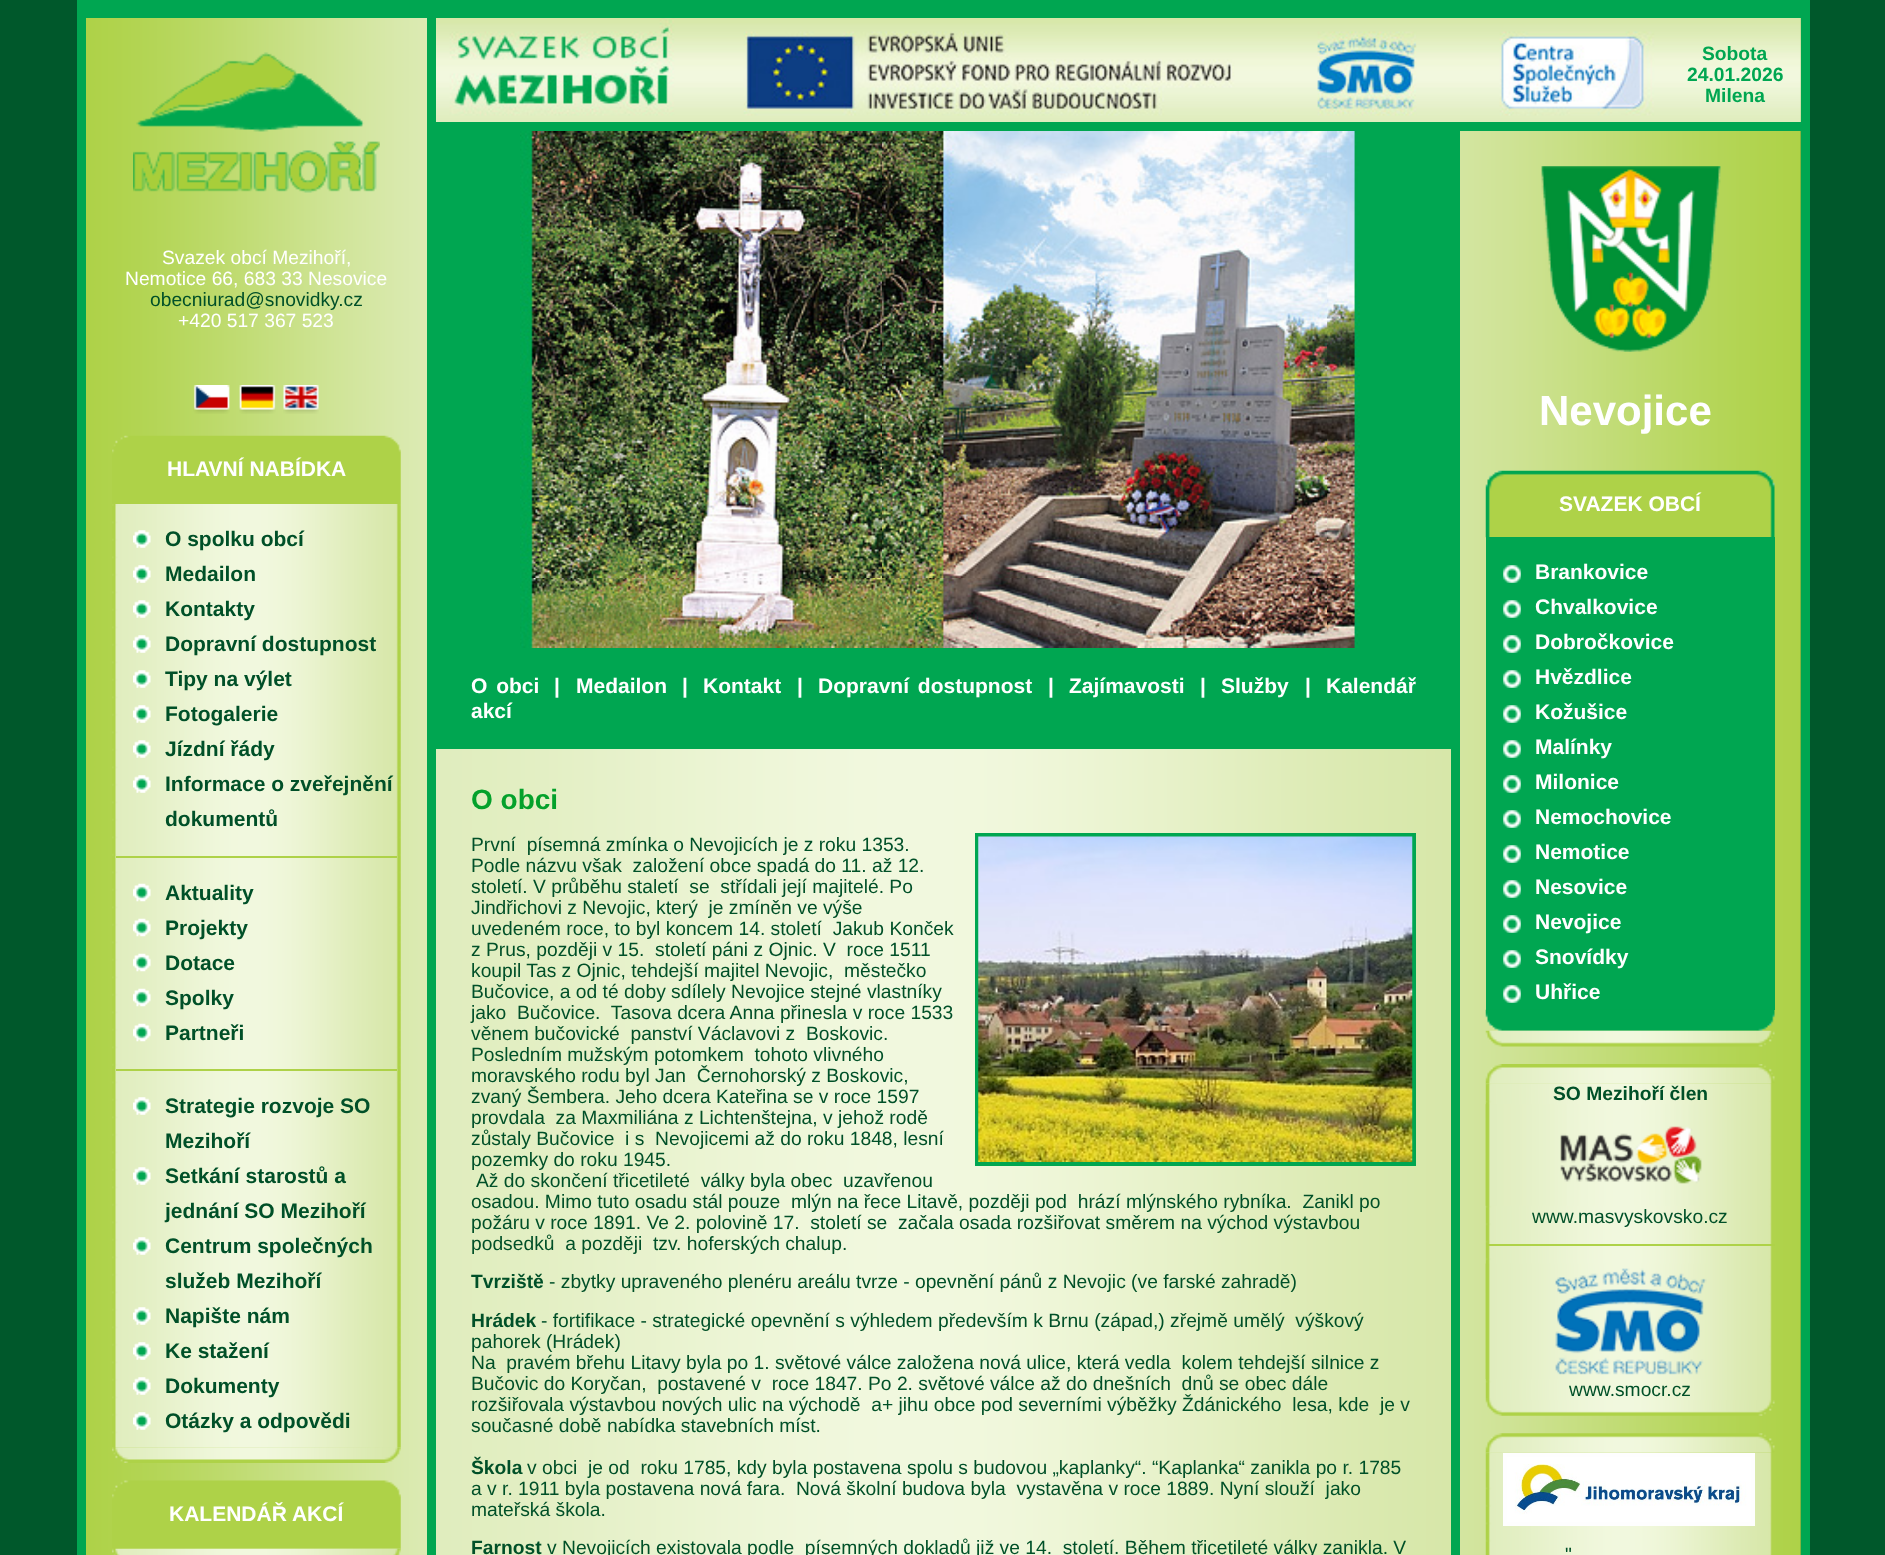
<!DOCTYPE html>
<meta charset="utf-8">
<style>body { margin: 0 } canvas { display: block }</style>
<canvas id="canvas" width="1885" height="1555"></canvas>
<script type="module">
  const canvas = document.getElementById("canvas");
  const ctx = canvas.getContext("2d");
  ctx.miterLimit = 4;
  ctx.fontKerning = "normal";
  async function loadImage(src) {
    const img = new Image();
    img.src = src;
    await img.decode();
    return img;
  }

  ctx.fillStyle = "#00582b";
  ctx.fillRect(0, 0, 1885, 1555);
  ctx.drawImage(await loadImage("img1.png"), 86, 18, 1715, 1537);
  ctx.fillStyle = "#00a651";
  ctx.fillRect(86, 0, 1715, 18);
  ctx.fillRect(1801, 0, 9, 1555);
  ctx.fillRect(77, 0, 9, 1555);
  ctx.drawImage(await loadImage("img2.png"), 133, 52, 247, 141);
  ctx.font = "19.25px Liberation Sans";
  ctx.fillStyle = "#ffffff";
  ctx.fillText("Svazek obcí Mezihoří,", 162, 264);
  ctx.fillText("Nemotice 66, 683 33 Nesovice", 125, 285);
  ctx.fillStyle = "#005028";
  ctx.fillText("obecniurad@snovidky.cz", 150, 306);
  ctx.fillStyle = "#ffffff";
  ctx.fillText("+420 517 367 523", 178, 327);
  ctx.drawImage(await loadImage("img3.png"), 193, 385, 37, 29);
  ctx.drawImage(await loadImage("img4.png"), 239, 385, 37, 29);
  ctx.drawImage(await loadImage("img5.png"), 283, 385, 36, 29);
  ctx.drawImage(await loadImage("img6.png"), 112, 435, 289, 69);
  ctx.font = "bold 21px Liberation Sans";
  ctx.fillText("HLAVNÍ NABÍDKA", 167, 476);
  ctx.drawImage(await loadImage("img7.png"), 112, 504, 289, 944);
  ctx.drawImage(await loadImage("img8.png"), 133, 530, 18, 18);
  ctx.fillStyle = "#005028";
  ctx.fillText("O spolku obcí", 165, 546);
  ctx.drawImage(await loadImage("img8.png"), 133, 565, 18, 18);
  ctx.fillText("Medailon", 165, 581);
  ctx.drawImage(await loadImage("img8.png"), 133, 600, 18, 18);
  ctx.fillText("Kontakty", 165, 616);
  ctx.drawImage(await loadImage("img8.png"), 133, 635, 18, 18);
  ctx.fillText("Dopravní dostupnost", 165, 651);
  ctx.drawImage(await loadImage("img8.png"), 133, 670, 18, 18);
  ctx.fillText("Tipy na výlet", 165, 686);
  ctx.drawImage(await loadImage("img8.png"), 133, 705, 18, 18);
  ctx.fillText("Fotogalerie", 165, 721);
  ctx.drawImage(await loadImage("img8.png"), 133, 740, 18, 18);
  ctx.fillText("Jízdní řády", 165, 756);
  ctx.drawImage(await loadImage("img8.png"), 133, 775, 18, 18);
  ctx.fillText("Informace o zveřejnění", 165, 791);
  ctx.fillText("dokumentů", 165, 826);
  ctx.fillStyle = "#aed248";
  ctx.fillRect(116, 856, 281, 2);
  ctx.drawImage(await loadImage("img9.png"), 133, 883, 18, 19);
  ctx.fillStyle = "#005028";
  ctx.fillText("Aktuality", 165, 900);
  ctx.drawImage(await loadImage("img9.png"), 133, 918, 18, 19);
  ctx.fillText("Projekty", 165, 935);
  ctx.drawImage(await loadImage("img9.png"), 133, 953, 18, 19);
  ctx.fillText("Dotace", 165, 970);
  ctx.drawImage(await loadImage("img9.png"), 133, 988, 18, 19);
  ctx.fillText("Spolky", 165, 1005);
  ctx.drawImage(await loadImage("img9.png"), 133, 1023, 18, 19);
  ctx.fillText("Partneři", 165, 1040);
  ctx.fillStyle = "#aed248";
  ctx.fillRect(116, 1069, 281, 2);
  ctx.drawImage(await loadImage("img8.png"), 133, 1097, 18, 18);
  ctx.fillStyle = "#005028";
  ctx.fillText("Strategie rozvoje SO", 165, 1113);
  ctx.fillText("Mezihoří", 165, 1148);
  ctx.drawImage(await loadImage("img8.png"), 133, 1167, 18, 18);
  ctx.fillText("Setkání starostů a", 165, 1183);
  ctx.fillText("jednání SO Mezihoří", 165, 1218);
  ctx.drawImage(await loadImage("img8.png"), 133, 1237, 18, 18);
  ctx.fillText("Centrum společných", 165, 1253);
  ctx.fillText("služeb Mezihoří", 165, 1288);
  ctx.drawImage(await loadImage("img8.png"), 133, 1307, 18, 18);
  ctx.fillText("Napište nám", 165, 1323);
  ctx.drawImage(await loadImage("img8.png"), 133, 1342, 18, 18);
  ctx.fillText("Ke stažení", 165, 1358);
  ctx.drawImage(await loadImage("img8.png"), 133, 1377, 18, 18);
  ctx.fillText("Dokumenty", 165, 1393);
  ctx.drawImage(await loadImage("img8.png"), 133, 1412, 18, 18);
  ctx.fillText("Otázky a odpovědi", 165, 1428);
  ctx.drawImage(await loadImage("img10.png"), 112, 1447, 289, 16);
  ctx.drawImage(await loadImage("img11.png"), 112, 1480, 289, 69);
  ctx.fillStyle = "#ffffff";
  ctx.fillText("KALENDÁŘ AKCÍ", 169, 1521);
  ctx.drawImage(await loadImage("img12.png"), 112, 1548, 289, 7);
  ctx.drawImage(await loadImage("img13.png"), 436, 18, 1365, 104);
  ctx.strokeStyle = "#00a651";
  ctx.lineWidth = 9;
  ctx.strokeRect(431.5, 13.5, 1374, 113);
  ctx.font = "bold 19.25px Liberation Sans";
  ctx.fillStyle = "#00a651";
  ctx.fillText("Sobota", 1702, 60);
  ctx.fillText("24.01.2026", 1687, 81);
  ctx.fillText("Milena", 1705, 102);
  ctx.drawImage(await loadImage("img14.png"), 436, 749, 1015, 806);
  ctx.fillRect(1451, 131, 9, 1424);
  ctx.fillRect(427, 131, 9, 1424);
  ctx.fillRect(436, 131, 1015, 618);
  ctx.drawImage(await loadImage("img15.png"), 520, 131, 840, 517);
  ctx.wordSpacing = "3px";
  ctx.font = "bold 21px Liberation Sans";
  ctx.fillStyle = "#ffffff";
  ctx.fillText("O obci", 471, 693);
  ctx.wordSpacing = "0px";
  ctx.fillText("|", 554, 693);
  ctx.fillText("Medailon", 576, 693);
  ctx.fillText("|", 682, 693);
  ctx.fillText("Kontakt", 703, 693);
  ctx.fillText("|", 797, 693);
  ctx.wordSpacing = "3px";
  ctx.fillText("Dopravní dostupnost", 818, 693);
  ctx.wordSpacing = "0px";
  ctx.fillText("|", 1048, 693);
  ctx.fillText("Zajímavosti", 1069, 693);
  ctx.fillText("|", 1200, 693);
  ctx.fillText("Služby", 1221, 693);
  ctx.fillText("|", 1305, 693);
  ctx.fillText("Kalendář", 1326, 693);
  ctx.fillText("akcí", 471, 718);
  ctx.font = "bold 28px Liberation Sans";
  ctx.fillStyle = "#04a12b";
  ctx.fillText("O obci", 471, 809);
  ctx.lineWidth = 4;
  ctx.strokeRect(977, 835, 437, 329);
  ctx.drawImage(await loadImage("img16.png"), 978, 836, 435, 326);
  ctx.font = "19.25px Liberation Sans";
  ctx.fillStyle = "#005028";
  ctx.fillText("První  písemná zmínka o Nevojicích je z roku 1353.", 471, 851);
  ctx.fillText("Podle názvu však  založení obce spadá do 11. až 12.", 471, 872);
  ctx.fillText("století. V průběhu staletí  se  střídali její majitelé. Po", 471, 893);
  ctx.fillText("Jindřichovi z Nevojic, který  je zmíněn ve výše", 471, 914);
  ctx.fillText("uvedeném roce, to byl koncem 14. století  Jakub Konček", 471, 935);
  ctx.fillText("z Prus, později v 15.  století páni z Ojnic. V  roce 1511", 471, 956);
  ctx.fillText("koupil Tas z Ojnic, tehdejší majitel Nevojic,  městečko", 471, 977);
  ctx.fillText("Bučovice, a od té doby sdílely Nevojice stejné vlastníky", 471, 998);
  ctx.fillText("jako  Bučovice.  Tasova dcera Anna přinesla v roce 1533", 471, 1019);
  ctx.fillText("věnem bučovické  panství Václavovi z  Boskovic.", 471, 1040);
  ctx.fillText("Posledním mužským potomkem  tohoto vlivného", 471, 1061);
  ctx.fillText("moravského rodu byl Jan  Černohorský z Boskovic,", 471, 1082);
  ctx.fillText("zvaný Šembera. Jeho dcera Kateřina se v roce 1597", 471, 1103);
  ctx.fillText("provdala  za Maxmiliána z Lichtenštejna, v jehož rodě", 471, 1124);
  ctx.fillText("zůstaly Bučovice  i s  Nevojicemi až do roku 1848, lesní", 471, 1145);
  ctx.fillText("pozemky do roku 1945.", 471, 1166);
  ctx.fillText("Až do skončení třicetileté  války byla obec  uzavřenou", 476, 1187);
  ctx.fillText("osadou. Mimo tuto osadu stál pouze  mlýn na řece Litavě, později pod  hrází mlýnského rybníka.  Zanikl po", 471, 1208);
  ctx.fillText("požáru v roce 1891. Ve 2. polovině 17.  století se  začala osada rozšiřovat směrem na východ výstavbou", 471, 1229);
  ctx.fillText("podsedků  a později  tzv. hoferských chalup.", 471, 1250);
  ctx.font = "bold 19.25px Liberation Sans";
  ctx.fillText("Tvrziště", 471, 1288);
  ctx.font = "19.25px Liberation Sans";
  ctx.fillText("- zbytky upraveného plenéru areálu tvrze - opevnění pánů z Nevojic (ve farské zahradě)", 549, 1288);
  ctx.font = "bold 19.25px Liberation Sans";
  ctx.fillText("Hrádek", 471, 1327);
  ctx.font = "19.25px Liberation Sans";
  ctx.fillText("- fortifikace - strategické opevnění s výhledem především k Brnu (západ,) zřejmě umělý  výškový", 541, 1327);
  ctx.fillText("pahorek (Hrádek)", 471, 1348);
  ctx.fillText("Na  pravém břehu Litavy byla po 1. světové válce založena nová ulice, která vedla  kolem tehdejší silnice z", 471, 1369);
  ctx.fillText("Bučovic do Koryčan,  postavené v  roce 1847. Po 2. světové válce až do dnešních  dnů se obec dále", 471, 1390);
  ctx.fillText("rozšiřovala výstavbou nových ulic na východě  a+ jihu obce pod severními výběžky Ždánického  lesa, kde  je v", 471, 1411);
  ctx.fillText("současné době nabídka stavebních míst.", 471, 1432);
  ctx.font = "bold 19.25px Liberation Sans";
  ctx.fillText("Škola", 471, 1474);
  ctx.font = "19.25px Liberation Sans";
  ctx.fillText("v obci  je od  roku 1785, kdy byla postavena spolu s budovou „kaplanky“. “Kaplanka“ zanikla po r. 1785", 527, 1474);
  ctx.fillText("a v r. 1911 byla postavena nová fara.  Nová školní budova byla  vystavěna v roce 1889. Nyní slouží  jako", 471, 1495);
  ctx.fillText("mateřská škola.", 471, 1516);
  ctx.font = "bold 19.25px Liberation Sans";
  ctx.fillText("Farnost", 471, 1554);
  ctx.font = "19.25px Liberation Sans";
  ctx.fillText("v Nevojicích existovala podle  písemných dokladů již ve 14.  století. Během třicetileté války zanikla. V", 547, 1554);
  ctx.drawImage(await loadImage("img17.png"), 1541, 166, 180, 186);
  ctx.font = "bold 42px Liberation Sans";
  ctx.fillStyle = "#ffffff";
  ctx.fillText("Nevojice", 1539, 425);
  ctx.drawImage(await loadImage("img18.png"), 1485, 470, 290, 68);
  ctx.font = "bold 21px Liberation Sans";
  ctx.fillText("SVAZEK OBCÍ", 1559, 511);
  ctx.fillStyle = "#00a651";
  ctx.fillRect(1486, 537, 289, 473);
  ctx.drawImage(await loadImage("img19.png"), 1503, 565, 18, 18);
  ctx.fillStyle = "#ffffff";
  ctx.fillText("Brankovice", 1535, 579);
  ctx.drawImage(await loadImage("img19.png"), 1503, 600, 18, 18);
  ctx.fillText("Chvalkovice", 1535, 614);
  ctx.drawImage(await loadImage("img19.png"), 1503, 635, 18, 18);
  ctx.fillText("Dobročkovice", 1535, 649);
  ctx.drawImage(await loadImage("img19.png"), 1503, 670, 18, 18);
  ctx.fillText("Hvězdlice", 1535, 684);
  ctx.drawImage(await loadImage("img19.png"), 1503, 705, 18, 18);
  ctx.fillText("Kožušice", 1535, 719);
  ctx.drawImage(await loadImage("img19.png"), 1503, 740, 18, 18);
  ctx.fillText("Malínky", 1535, 754);
  ctx.drawImage(await loadImage("img19.png"), 1503, 775, 18, 18);
  ctx.fillText("Milonice", 1535, 789);
  ctx.drawImage(await loadImage("img19.png"), 1503, 810, 18, 18);
  ctx.fillText("Nemochovice", 1535, 824);
  ctx.drawImage(await loadImage("img19.png"), 1503, 845, 18, 18);
  ctx.fillText("Nemotice", 1535, 859);
  ctx.drawImage(await loadImage("img19.png"), 1503, 880, 18, 18);
  ctx.fillText("Nesovice", 1535, 894);
  ctx.drawImage(await loadImage("img19.png"), 1503, 915, 18, 18);
  ctx.fillText("Nevojice", 1535, 929);
  ctx.drawImage(await loadImage("img19.png"), 1503, 950, 18, 18);
  ctx.fillText("Snovídky", 1535, 964);
  ctx.drawImage(await loadImage("img19.png"), 1503, 985, 18, 18);
  ctx.fillText("Uhřice", 1535, 999);
  ctx.drawImage(await loadImage("img20.png"), 1485, 1009, 290, 22);
  ctx.drawImage(await loadImage("img21.png"), 1485, 1030, 290, 17);
  ctx.drawImage(await loadImage("img22.png"), 1485, 1064, 290, 20);
  ctx.drawImage(await loadImage("img23.png"), 1485, 1083, 287, 317);
  ctx.font = "bold 19.25px Liberation Sans";
  ctx.fillStyle = "#005028";
  ctx.fillText("SO Mezihoří člen", 1553, 1100);
  ctx.drawImage(await loadImage("img24.png"), 1485, 1104, 217, 102);
  ctx.font = "19.25px Liberation Sans";
  ctx.fillText("www.masvyskovsko.cz", 1532, 1223);
  ctx.fillStyle = "#aed248";
  ctx.fillRect(1486, 1244, 289, 2);
  ctx.drawImage(await loadImage("img25.png"), 1485, 1263, 222, 116);
  ctx.fillStyle = "#005028";
  ctx.fillText("www.smocr.cz", 1569, 1396);
  ctx.drawImage(await loadImage("img26.png"), 1485, 1400, 290, 16);
  ctx.drawImage(await loadImage("img27.png"), 1485, 1433, 290, 20);
  ctx.drawImage(await loadImage("img28.png"), 1485, 1452, 287, 103);
  ctx.strokeStyle = "#fefefe";
  ctx.strokeRect(1505, 1455, 248, 69);
  ctx.drawImage(await loadImage("img29.png"), 1507, 1457, 244, 65);
  ctx.fillText("\"", 1565, 1561);
</script>
